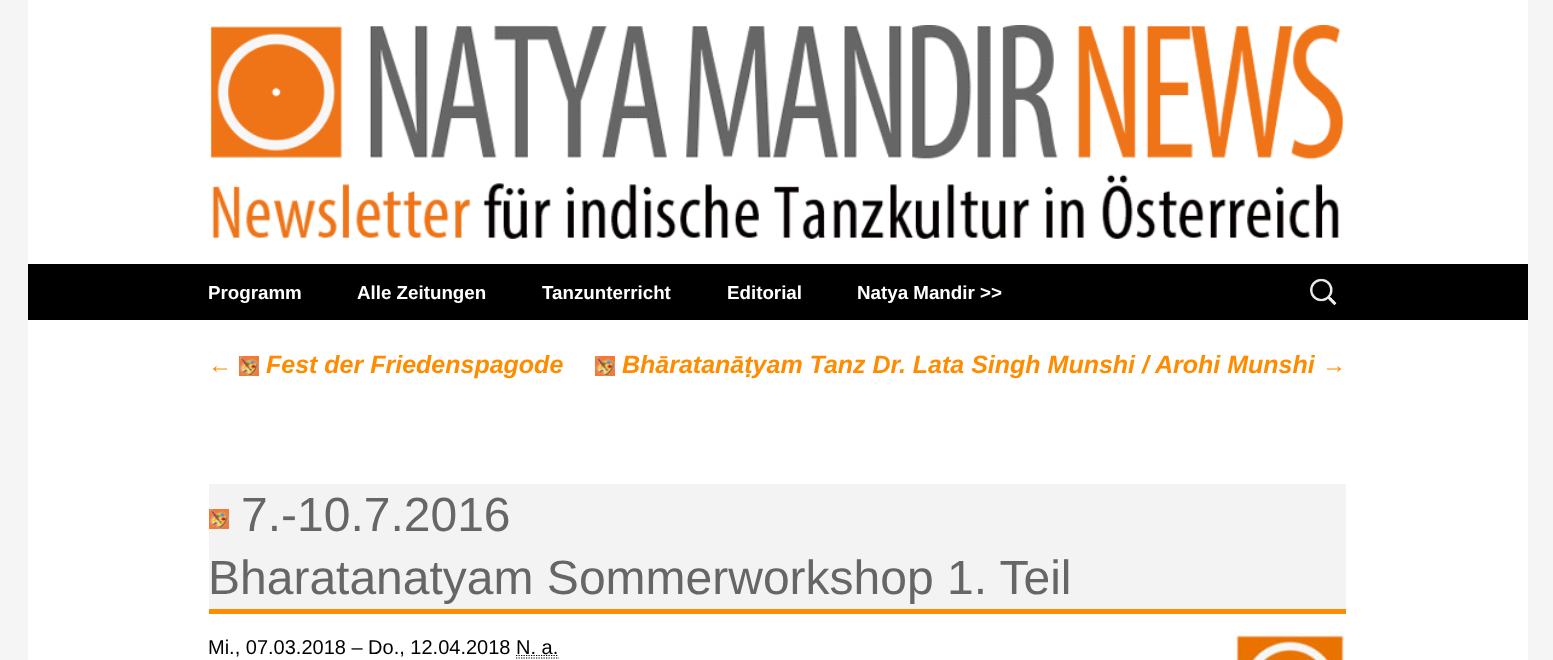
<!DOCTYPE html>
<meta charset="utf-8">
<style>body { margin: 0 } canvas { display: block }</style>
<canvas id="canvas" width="1553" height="660"></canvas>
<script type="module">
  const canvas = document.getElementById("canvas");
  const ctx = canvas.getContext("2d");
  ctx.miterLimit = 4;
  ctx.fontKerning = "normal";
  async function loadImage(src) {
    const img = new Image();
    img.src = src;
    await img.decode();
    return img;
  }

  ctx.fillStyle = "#f5f5f5";
  ctx.fillRect(0, 0, 1553, 660);
  ctx.fillStyle = "#ffffff";
  ctx.fillRect(28, 0, 1500, 660);
  ctx.drawImage(await loadImage("img1.png"), 210, 25, 1134, 214);
  ctx.fillStyle = "#000000";
  ctx.fillRect(28, 264, 1500, 56);
  ctx.font = "bold 18.75px Liberation Sans";
  ctx.fillStyle = "#ffffff";
  ctx.fillText("Programm", 208, 299);
  ctx.fillText("Alle Zeitungen", 357, 299);
  ctx.fillText("Tanzunterricht", 542, 299);
  ctx.fillText("Editorial", 727, 299);
  ctx.fillText("Natya Mandir >>", 857, 299);
  ctx.drawImage(await loadImage("img2.png"), 1310, 278, 27, 27);
  ctx.font = "italic bold 24px Liberation Sans";
  ctx.fillStyle = "#ff8c00";
  ctx.fillText("←", 208, 373);
  ctx.fillStyle = "#f27937";
  ctx.fillRect(239, 356, 20, 20);
  ctx.drawImage(await loadImage("img3.png"), 240, 356, 19, 21);
  ctx.font = "italic bold 25px Liberation Sans";
  ctx.fillStyle = "#ff8c00";
  ctx.fillText("Fest der Friedenspagode", 266, 373);
  ctx.fillStyle = "#f27937";
  ctx.fillRect(595, 356, 20, 20);
  ctx.drawImage(await loadImage("img4.png"), 596, 356, 19, 21);
  ctx.fillStyle = "#ff8c00";
  ctx.fillText("Bhāratanāṭyam Tanz Dr. Lata Singh Munshi / Arohi Munshi", 622, 373);
  ctx.font = "italic bold 24px Liberation Sans";
  ctx.fillText("→", 1322, 373);
  ctx.fillStyle = "#f3f3f3";
  ctx.fillRect(209, 484, 1137, 125);
  ctx.fillStyle = "#ff8c00";
  ctx.fillRect(209, 609, 1137, 5);
  ctx.fillStyle = "#f27937";
  ctx.fillRect(209, 509, 20, 20);
  ctx.drawImage(await loadImage("img5.png"), 210, 509, 19, 20);
  ctx.font = "48px Liberation Sans";
  ctx.fillStyle = "#666666";
  ctx.fillText("7.-10.7.2016", 241, 531);
  ctx.fillText("Bharatanatyam Sommerworkshop 1. Teil", 208, 594);
  ctx.drawImage(await loadImage("img6.png"), 1233, 632, 111, 28);
  ctx.font = "20px Liberation Sans";
  ctx.fillStyle = "#000000";
  ctx.fillText("Mi., 07.03.2018 – Do., 12.04.2018", 208, 654);
  ctx.beginPath();
  ctx.moveTo(516, 658);
  ctx.lineTo(559, 658);
  ctx.moveTo(516, 655.5);
  ctx.lineTo(558.5, 655.5);
  ctx.strokeStyle = "#000000";
  ctx.lineWidth = 1.2;
  ctx.setLineDash([1.25, 1.25]);
  ctx.stroke();
  ctx.fillText("N. a.", 516, 654);
</script>
